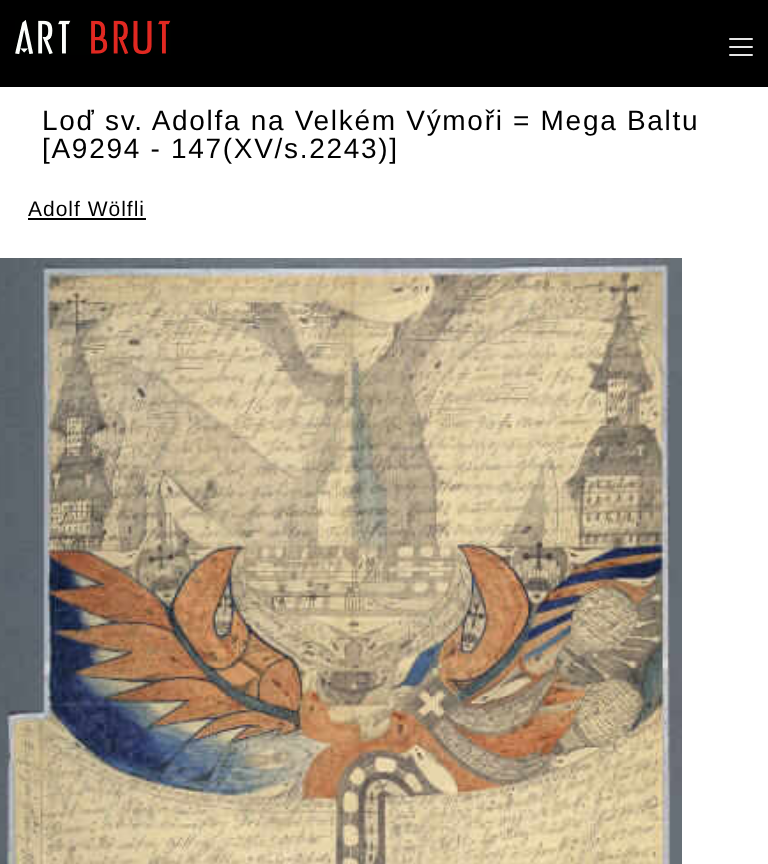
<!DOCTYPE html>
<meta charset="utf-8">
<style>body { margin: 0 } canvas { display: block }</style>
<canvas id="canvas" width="768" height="864"></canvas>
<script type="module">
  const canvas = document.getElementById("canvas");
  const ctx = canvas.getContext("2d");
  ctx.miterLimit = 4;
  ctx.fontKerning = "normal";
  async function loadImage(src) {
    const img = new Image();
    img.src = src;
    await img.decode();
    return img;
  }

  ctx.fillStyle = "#000000";
  ctx.fillRect(0, 0, 768, 864);
  ctx.drawImage(await loadImage("img1.png"), 15, 20, 156, 35);
  ctx.drawImage(await loadImage("img2.png"), 729, 38, 24, 18);
  ctx.fillStyle = "#ffffff";
  ctx.fillRect(0, 87, 768, 777);
  ctx.letterSpacing = "1.7px";
  ctx.font = "28px Liberation Sans";
  ctx.fillStyle = "#000000";
  ctx.fillText("Loď sv. Adolfa na Velkém Výmoři = Mega Baltu", 42, 130);
  ctx.fillText("[A9294 - 147(XV/s.2243)]", 42, 158);
  ctx.letterSpacing = "1px";
  ctx.font = "21px Liberation Sans";
  ctx.fillText("Adolf Wölfli", 28, 216);
  ctx.fillRect(28, 218, 118, 2);
  ctx.drawImage(await loadImage("img3.png"), 0, 258, 682, 606);
</script>
